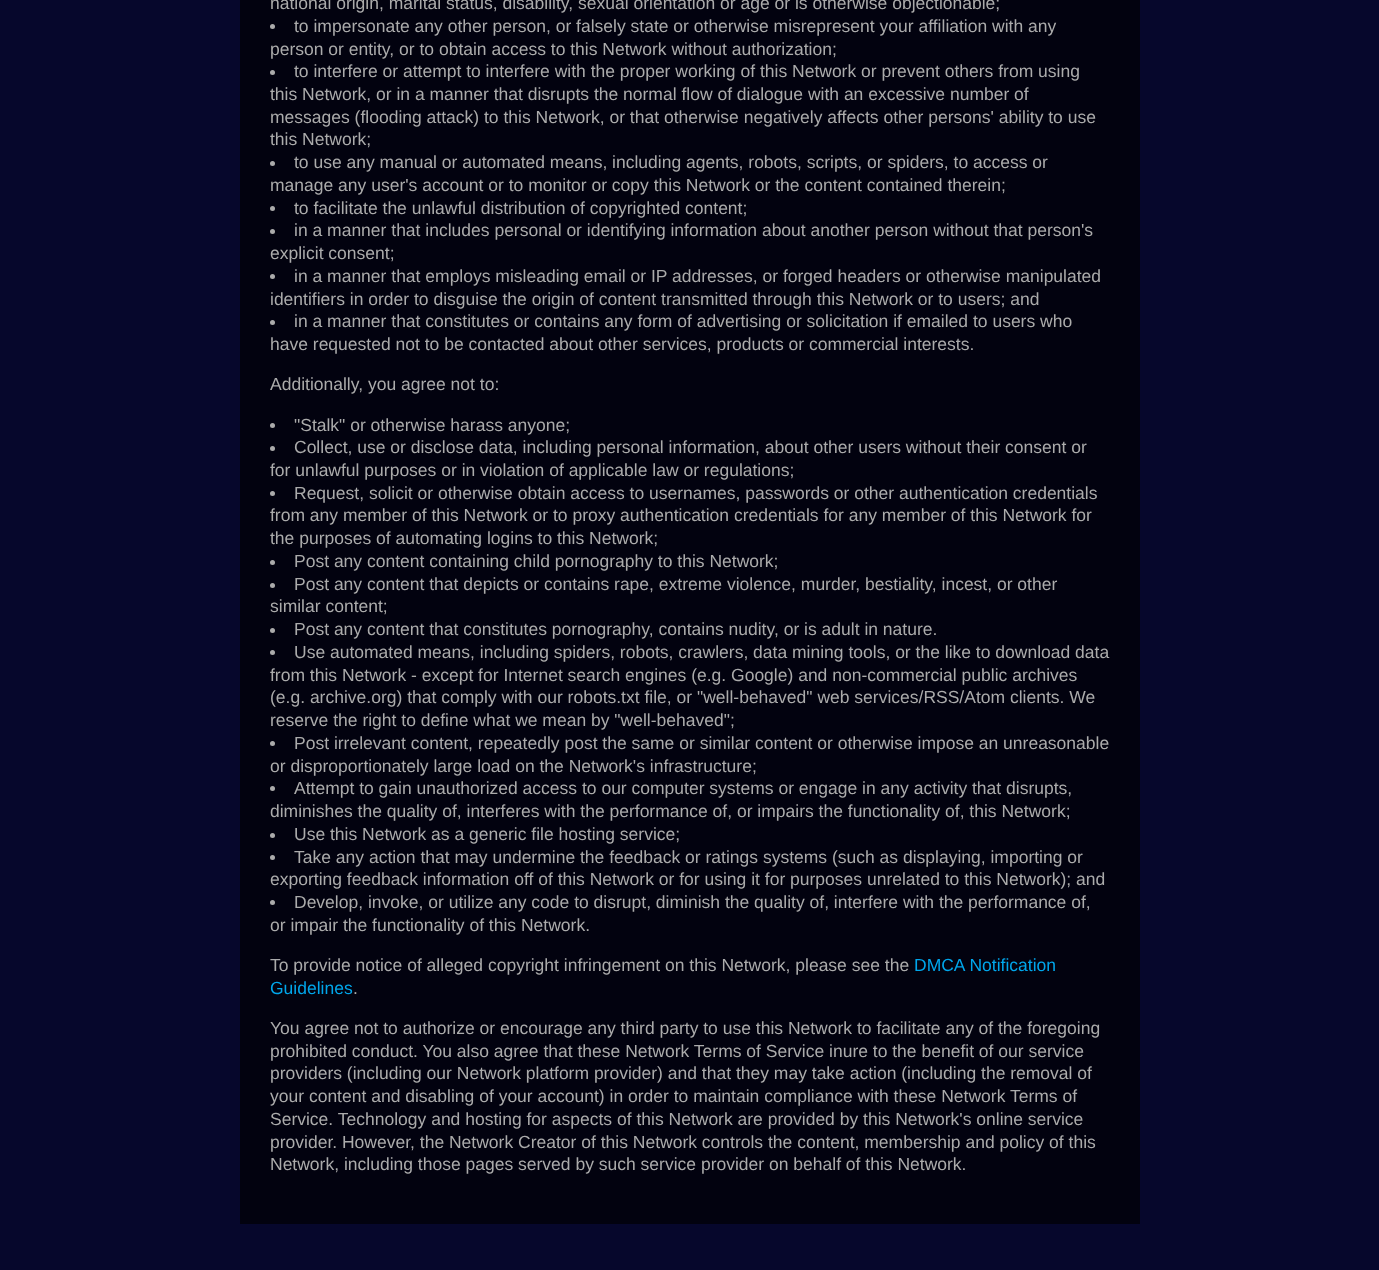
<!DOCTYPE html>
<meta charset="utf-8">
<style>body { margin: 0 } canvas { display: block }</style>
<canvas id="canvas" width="1379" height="1270"></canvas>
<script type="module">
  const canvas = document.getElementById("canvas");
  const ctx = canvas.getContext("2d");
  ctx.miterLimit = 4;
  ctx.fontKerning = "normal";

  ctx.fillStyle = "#06072c";
  ctx.fillRect(0, 0, 1379, 1270);
  ctx.fillStyle = "#02020f";
  ctx.fillRect(240, 0, 900, 1224);
  ctx.font = "17.5px Liberation Sans";
  ctx.fillStyle = "#ababab";
  ctx.fillText("national origin, marital status, disability, sexual orientation or age or is otherwise objectionable;", 270, 9);
  ctx.beginPath();
  ctx.arc(272.5, 26.5, 2.5, 0, Math.PI * 2);
  ctx.fill();
  ctx.fillText("to impersonate any other person, or falsely state or otherwise misrepresent your affiliation with any", 294, 32);
  ctx.fillText("person or entity, or to obtain access to this Network without authorization;", 270, 55);
  ctx.beginPath();
  ctx.arc(272.5, 72.5, 2.5, 0, Math.PI * 2);
  ctx.fill();
  ctx.fillText("to interfere or attempt to interfere with the proper working of this Network or prevent others from using", 294, 77);
  ctx.fillText("this Network, or in a manner that disrupts the normal flow of dialogue with an excessive number of", 270, 100);
  ctx.fillText("messages (flooding attack) to this Network, or that otherwise negatively affects other persons' ability to use", 270, 123);
  ctx.fillText("this Network;", 270, 145);
  ctx.beginPath();
  ctx.arc(272.5, 163.5, 2.5, 0, Math.PI * 2);
  ctx.fill();
  ctx.fillText("to use any manual or automated means, including agents, robots, scripts, or spiders, to access or", 294, 168);
  ctx.fillText("manage any user's account or to monitor or copy this Network or the content contained therein;", 270, 191);
  ctx.beginPath();
  ctx.arc(272.5, 208.5, 2.5, 0, Math.PI * 2);
  ctx.fill();
  ctx.fillText("to facilitate the unlawful distribution of copyrighted content;", 294, 214);
  ctx.beginPath();
  ctx.arc(272.5, 231.5, 2.5, 0, Math.PI * 2);
  ctx.fill();
  ctx.fillText("in a manner that includes personal or identifying information about another person without that person's", 294, 236);
  ctx.fillText("explicit consent;", 270, 259);
  ctx.beginPath();
  ctx.arc(272.5, 276.5, 2.5, 0, Math.PI * 2);
  ctx.fill();
  ctx.fillText("in a manner that employs misleading email or IP addresses, or forged headers or otherwise manipulated", 294, 282);
  ctx.fillText("identifiers in order to disguise the origin of content transmitted through this Network or to users; and", 270, 305);
  ctx.beginPath();
  ctx.arc(272.5, 322.5, 2.5, 0, Math.PI * 2);
  ctx.fill();
  ctx.fillText("in a manner that constitutes or contains any form of advertising or solicitation if emailed to users who", 294, 327);
  ctx.fillText("have requested not to be contacted about other services, products or commercial interests.", 270, 350);
  ctx.fillText("Additionally, you agree not to:", 270, 390);
  ctx.beginPath();
  ctx.arc(272.5, 425.5, 2.5, 0, Math.PI * 2);
  ctx.fill();
  ctx.fillText("\"Stalk\" or otherwise harass anyone;", 294, 431);
  ctx.beginPath();
  ctx.arc(272.5, 448.5, 2.5, 0, Math.PI * 2);
  ctx.fill();
  ctx.fillText("Collect, use or disclose data, including personal information, about other users without their consent or", 294, 453);
  ctx.fillText("for unlawful purposes or in violation of applicable law or regulations;", 270, 476);
  ctx.beginPath();
  ctx.arc(272.5, 493.5, 2.5, 0, Math.PI * 2);
  ctx.fill();
  ctx.fillText("Request, solicit or otherwise obtain access to usernames, passwords or other authentication credentials", 294, 499);
  ctx.fillText("from any member of this Network or to proxy authentication credentials for any member of this Network for", 270, 521);
  ctx.fillText("the purposes of automating logins to this Network;", 270, 544);
  ctx.beginPath();
  ctx.arc(272.5, 562.5, 2.5, 0, Math.PI * 2);
  ctx.fill();
  ctx.fillText("Post any content containing child pornography to this Network;", 294, 567);
  ctx.beginPath();
  ctx.arc(272.5, 585.5, 2.5, 0, Math.PI * 2);
  ctx.fill();
  ctx.fillText("Post any content that depicts or contains rape, extreme violence, murder, bestiality, incest, or other", 294, 590);
  ctx.fillText("similar content;", 270, 612);
  ctx.beginPath();
  ctx.arc(272.5, 630.5, 2.5, 0, Math.PI * 2);
  ctx.fill();
  ctx.fillText("Post any content that constitutes pornography, contains nudity, or is adult in nature.", 294, 635);
  ctx.beginPath();
  ctx.arc(272.5, 652.5, 2.5, 0, Math.PI * 2);
  ctx.fill();
  ctx.fillText("Use automated means, including spiders, robots, crawlers, data mining tools, or the like to download data", 294, 658);
  ctx.fillText("from this Network - except for Internet search engines (e.g. Google) and non-commercial public archives", 270, 681);
  ctx.fillText("(e.g. archive.org) that comply with our robots.txt file, or \"well-behaved\" web services/RSS/Atom clients. We", 270, 703);
  ctx.fillText("reserve the right to define what we mean by \"well-behaved\";", 270, 726);
  ctx.beginPath();
  ctx.arc(272.5, 743.5, 2.5, 0, Math.PI * 2);
  ctx.fill();
  ctx.fillText("Post irrelevant content, repeatedly post the same or similar content or otherwise impose an unreasonable", 294, 749);
  ctx.fillText("or disproportionately large load on the Network's infrastructure;", 270, 772);
  ctx.beginPath();
  ctx.arc(272.5, 788.5, 2.5, 0, Math.PI * 2);
  ctx.fill();
  ctx.fillText("Attempt to gain unauthorized access to our computer systems or engage in any activity that disrupts,", 294, 794);
  ctx.fillText("diminishes the quality of, interferes with the performance of, or impairs the functionality of, this Network;", 270, 817);
  ctx.beginPath();
  ctx.arc(272.5, 835.5, 2.5, 0, Math.PI * 2);
  ctx.fill();
  ctx.fillText("Use this Network as a generic file hosting service;", 294, 840);
  ctx.beginPath();
  ctx.arc(272.5, 857.5, 2.5, 0, Math.PI * 2);
  ctx.fill();
  ctx.fillText("Take any action that may undermine the feedback or ratings systems (such as displaying, importing or", 294, 863);
  ctx.fillText("exporting feedback information off of this Network or for using it for purposes unrelated to this Network); and", 270, 885);
  ctx.beginPath();
  ctx.arc(272.5, 902.5, 2.5, 0, Math.PI * 2);
  ctx.fill();
  ctx.fillText("Develop, invoke, or utilize any code to disrupt, diminish the quality of, interfere with the performance of,", 294, 908);
  ctx.fillText("or impair the functionality of this Network.", 270, 931);
  ctx.fillText("To provide notice of alleged copyright infringement on this Network, please see the", 270, 971);
  ctx.fillStyle = "#00a6eb";
  ctx.fillText("DMCA Notification", 914, 971);
  ctx.fillText("Guidelines", 270, 994);
  ctx.fillStyle = "#ababab";
  ctx.fillText(".", 353, 994);
  ctx.fillText("You agree not to authorize or encourage any third party to use this Network to facilitate any of the foregoing", 270, 1034);
  ctx.fillText("prohibited conduct. You also agree that these Network Terms of Service inure to the benefit of our service", 270, 1057);
  ctx.fillText("providers (including our Network platform provider) and that they may take action (including the removal of", 270, 1079);
  ctx.fillText("your content and disabling of your account) in order to maintain compliance with these Network Terms of", 270, 1102);
  ctx.fillText("Service. Technology and hosting for aspects of this Network are provided by this Network's online service", 270, 1125);
  ctx.fillText("provider. However, the Network Creator of this Network controls the content, membership and policy of this", 270, 1148);
  ctx.fillText("Network, including those pages served by such service provider on behalf of this Network.", 270, 1170);
</script>
